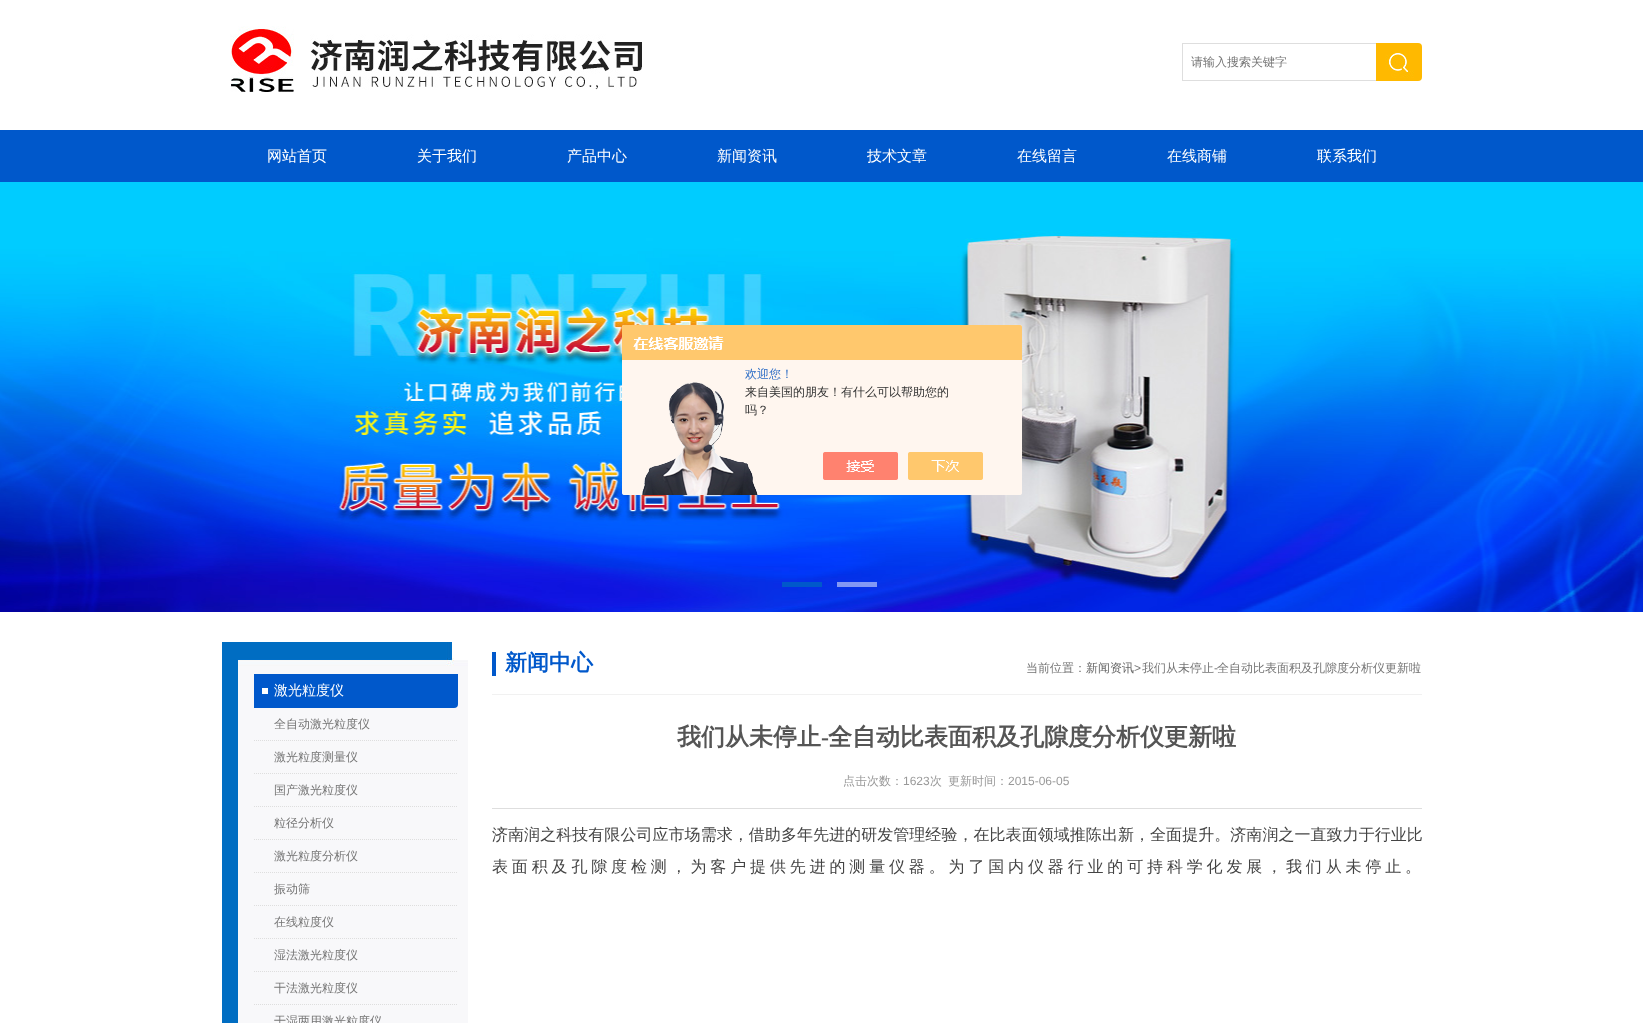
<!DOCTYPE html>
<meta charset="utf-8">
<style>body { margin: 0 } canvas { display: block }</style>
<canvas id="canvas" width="1643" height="1023"></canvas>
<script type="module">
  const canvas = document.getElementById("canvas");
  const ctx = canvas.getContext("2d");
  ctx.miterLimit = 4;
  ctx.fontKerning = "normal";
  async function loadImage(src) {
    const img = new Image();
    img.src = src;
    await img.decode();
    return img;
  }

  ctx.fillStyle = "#ffffff";
  ctx.fillRect(0, 0, 1643, 1023);
  ctx.drawImage(await loadImage("img1.png"), 230, 26, 412, 66);
  ctx.strokeStyle = "#dedede";
  ctx.strokeRect(1182.5, 43.5, 194, 37);
  ctx.font = "500 12px WenQuanYi Zen Hei";
  ctx.fillStyle = "#757575";
  ctx.fillText("请输入搜索关键字", 1191, 66);
  ctx.fillStyle = "#ffb900";
  ctx.beginPath();
  ctx.roundRect(1376, 43, 46, 38, [0, 4, 4, 0]);
  ctx.fill();
  ctx.drawImage(await loadImage("img2.png"), 1385, 53, 29, 25);
  ctx.fillStyle = "#0058cb";
  ctx.fillRect(0, 130, 1643, 52);
  ctx.font = "500 15px WenQuanYi Zen Hei";
  ctx.fillStyle = "#ffffff";
  ctx.fillText("网站首页", 267, 161);
  ctx.fillText("关于我们", 417, 161);
  ctx.fillText("产品中心", 567, 161);
  ctx.fillText("新闻资讯", 717, 161);
  ctx.fillText("技术文章", 867, 161);
  ctx.fillText("在线留言", 1017, 161);
  ctx.fillText("在线商铺", 1167, 161);
  ctx.fillText("联系我们", 1317, 161);
  ctx.drawImage(await loadImage("img3.png"), 0, 182, 1643, 430);
  ctx.fillStyle = "#0058cb";
  ctx.fillRect(782, 582, 40, 5);
  ctx.fillStyle = "rgba(255, 255, 255, 0.5)";
  ctx.fillRect(837, 582, 40, 5);
  ctx.drawImage(await loadImage("img4.png"), 622, 325, 400, 170);
  ctx.font = "500 12px WenQuanYi Zen Hei";
  ctx.fillStyle = "#2e6ec6";
  ctx.fillText("欢迎您！", 745, 378);
  ctx.fillStyle = "#333333";
  ctx.fillText("来自美国的朋友！有什么可以帮助您的", 745, 396);
  ctx.fillText("吗？", 745, 414);
  ctx.drawImage(await loadImage("img5.png"), 222, 642, 246, 381);
  ctx.drawImage(await loadImage("img6.png"), 238, 642, 230, 24);
  ctx.fillStyle = "#0058cb";
  ctx.beginPath();
  ctx.roundRect(254, 674, 204, 34, [0, 0, 4, 0]);
  ctx.fill();
  ctx.fillStyle = "#ffffff";
  ctx.fillRect(262, 688, 6, 6);
  ctx.font = "500 14px WenQuanYi Zen Hei";
  ctx.fillText("激光粒度仪", 274, 695);
  ctx.beginPath();
  ctx.moveTo(254, 740.5);
  ctx.lineTo(458, 740.5);
  ctx.setLineDash([1, 1]);
  ctx.stroke();
  ctx.font = "500 12px WenQuanYi Zen Hei";
  ctx.fillStyle = "#757575";
  ctx.fillText("全自动激光粒度仪", 274, 728);
  ctx.beginPath();
  ctx.moveTo(254, 773.5);
  ctx.lineTo(458, 773.5);
  ctx.stroke();
  ctx.fillText("激光粒度测量仪", 274, 761);
  ctx.beginPath();
  ctx.moveTo(254, 806.5);
  ctx.lineTo(458, 806.5);
  ctx.stroke();
  ctx.fillText("国产激光粒度仪", 274, 794);
  ctx.beginPath();
  ctx.moveTo(254, 839.5);
  ctx.lineTo(458, 839.5);
  ctx.stroke();
  ctx.fillText("粒径分析仪", 274, 827);
  ctx.beginPath();
  ctx.moveTo(254, 872.5);
  ctx.lineTo(458, 872.5);
  ctx.stroke();
  ctx.fillText("激光粒度分析仪", 274, 860);
  ctx.beginPath();
  ctx.moveTo(254, 905.5);
  ctx.lineTo(458, 905.5);
  ctx.stroke();
  ctx.fillText("振动筛", 274, 893);
  ctx.beginPath();
  ctx.moveTo(254, 938.5);
  ctx.lineTo(458, 938.5);
  ctx.stroke();
  ctx.fillText("在线粒度仪", 274, 926);
  ctx.beginPath();
  ctx.moveTo(254, 971.5);
  ctx.lineTo(458, 971.5);
  ctx.stroke();
  ctx.fillText("湿法激光粒度仪", 274, 959);
  ctx.beginPath();
  ctx.moveTo(254, 1004.5);
  ctx.lineTo(458, 1004.5);
  ctx.stroke();
  ctx.fillText("干法激光粒度仪", 274, 992);
  ctx.fillText("干湿两用激光粒度仪", 274, 1025);
  ctx.fillStyle = "#f1f1f1";
  ctx.fillRect(492, 694, 930, 1);
  ctx.fillStyle = "#0058cb";
  ctx.fillRect(492, 652, 4, 24);
  ctx.font = "bold 22px WenQuanYi Zen Hei";
  ctx.fillText("新闻中心", 505, 670);
  ctx.font = "500 12px WenQuanYi Zen Hei";
  ctx.fillStyle = "#757575";
  ctx.fillText("当前位置：", 1026, 672);
  ctx.fillStyle = "#666666";
  ctx.fillText("新闻资讯", 1086, 672);
  ctx.font = "12px Liberation Sans";
  ctx.fillStyle = "#757575";
  ctx.fillText(">", 1134, 672);
  ctx.font = "500 12px WenQuanYi Zen Hei";
  ctx.fillText("我们从未停止", 1142, 672);
  ctx.font = "12px Liberation Sans";
  ctx.fillText("-", 1214, 672);
  ctx.font = "500 12px WenQuanYi Zen Hei";
  ctx.fillText("全自动比表面积及孔隙度分析仪更新啦", 1217, 672);
  ctx.font = "bold 24px WenQuanYi Zen Hei";
  ctx.fillStyle = "#555555";
  ctx.fillText("我们从未停止", 677, 745);
  ctx.font = "bold 24px Liberation Serif";
  ctx.fillText("-", 821, 745);
  ctx.font = "bold 24px WenQuanYi Zen Hei";
  ctx.fillText("全自动比表面积及孔隙度分析仪更新啦", 828, 745);
  ctx.fillStyle = "#dedede";
  ctx.fillRect(492, 808, 930, 1);
  ctx.font = "500 12px WenQuanYi Zen Hei";
  ctx.fillStyle = "#999999";
  ctx.fillText("点击次数：", 843, 785);
  ctx.font = "12px Liberation Sans";
  ctx.fillText("1623", 903, 785);
  ctx.font = "500 12px WenQuanYi Zen Hei";
  ctx.fillText("次", 930, 785);
  ctx.fillText("更新时间：", 948, 785);
  ctx.font = "12px Liberation Sans";
  ctx.fillText("2015-06-05", 1008, 785);
  ctx.letterSpacing = "0.05px";
  ctx.font = "500 16px WenQuanYi Zen Hei";
  ctx.fillStyle = "#444444";
  ctx.fillText("济南润之科技有限公司应市场需求，借助多年先进的研发管理经验，在比表面领域推陈出新，全面提升。济南润之一直致力于行业比", 492, 840);
  ctx.letterSpacing = "3.85px";
  ctx.fillText("表面积及孔隙度检测，为客户提供先进的测量仪器。为了国内仪器行业的可持科学化发展，我们从未停止。", 492, 872);
</script>
